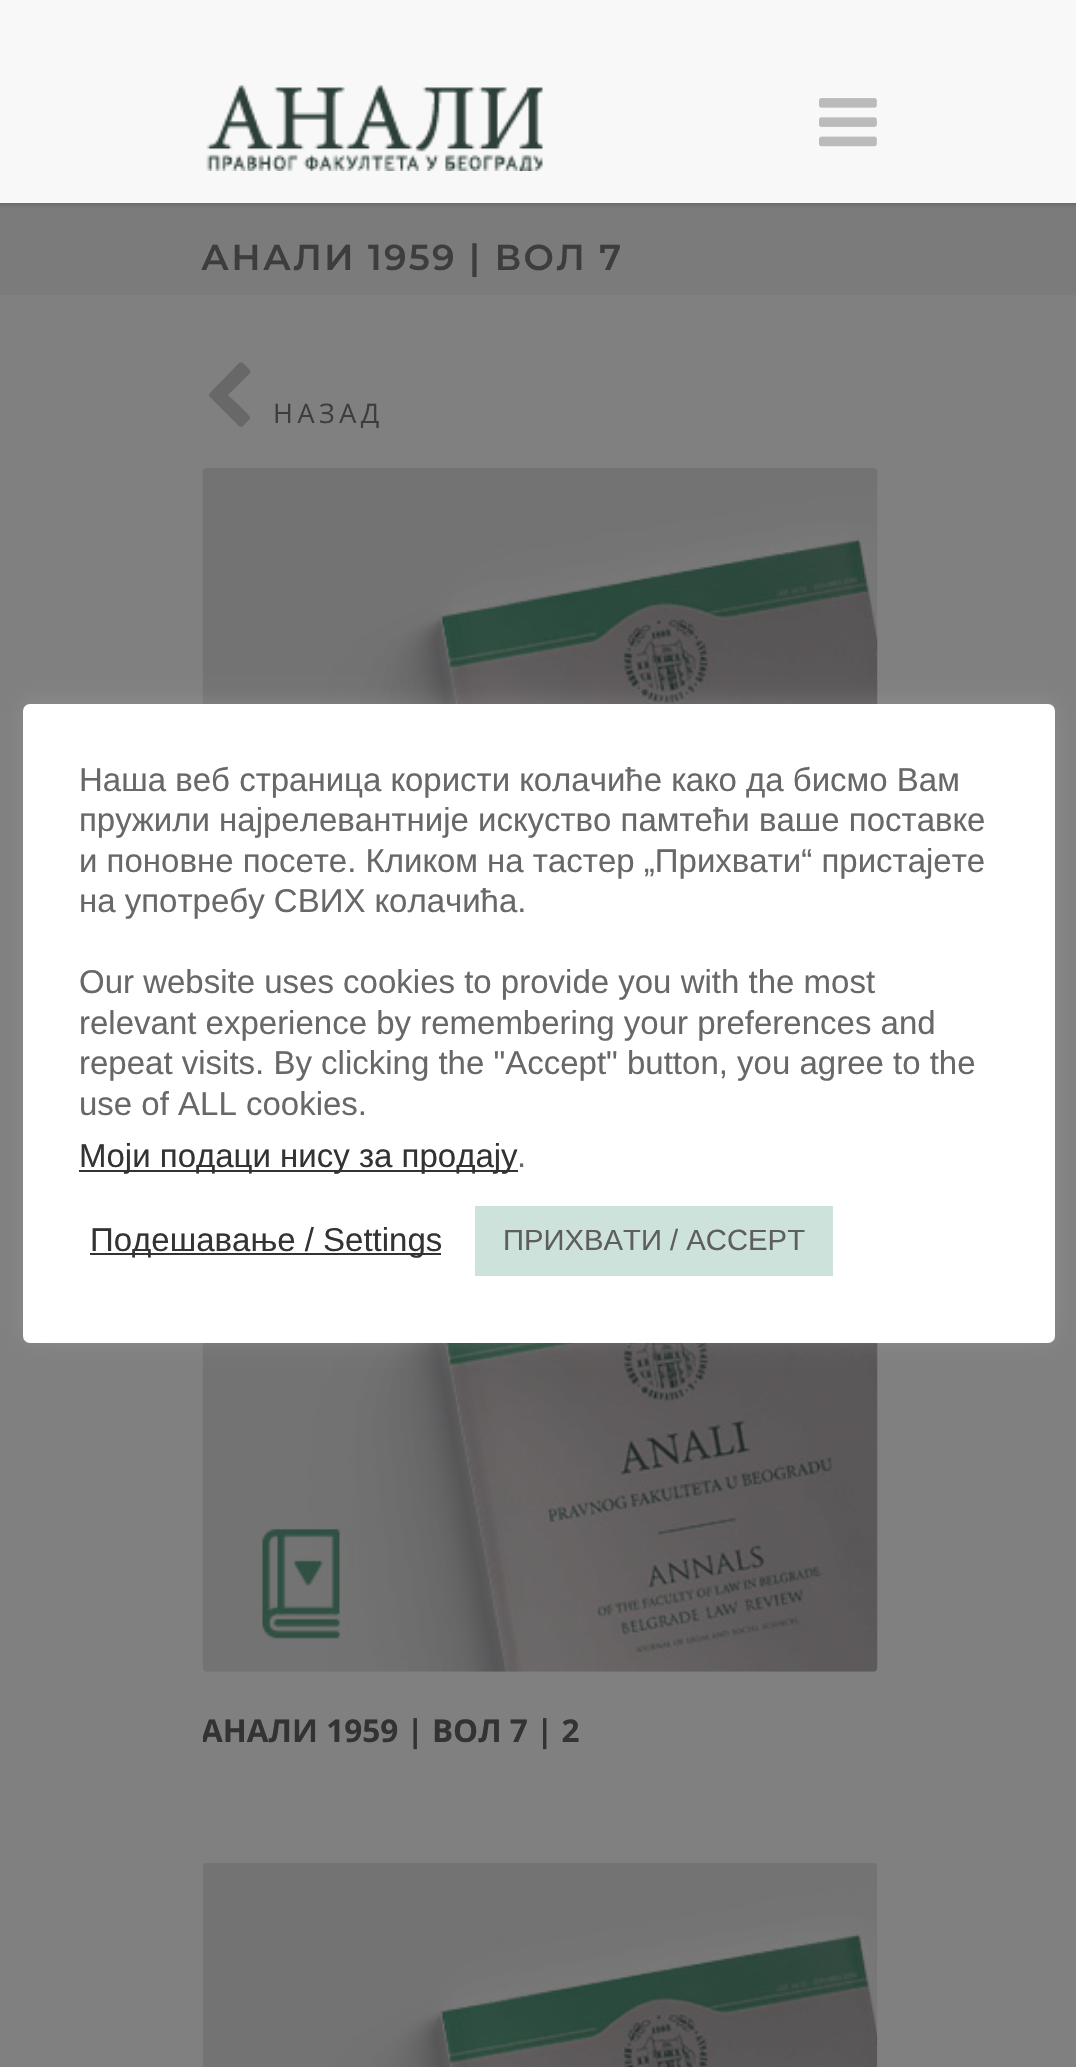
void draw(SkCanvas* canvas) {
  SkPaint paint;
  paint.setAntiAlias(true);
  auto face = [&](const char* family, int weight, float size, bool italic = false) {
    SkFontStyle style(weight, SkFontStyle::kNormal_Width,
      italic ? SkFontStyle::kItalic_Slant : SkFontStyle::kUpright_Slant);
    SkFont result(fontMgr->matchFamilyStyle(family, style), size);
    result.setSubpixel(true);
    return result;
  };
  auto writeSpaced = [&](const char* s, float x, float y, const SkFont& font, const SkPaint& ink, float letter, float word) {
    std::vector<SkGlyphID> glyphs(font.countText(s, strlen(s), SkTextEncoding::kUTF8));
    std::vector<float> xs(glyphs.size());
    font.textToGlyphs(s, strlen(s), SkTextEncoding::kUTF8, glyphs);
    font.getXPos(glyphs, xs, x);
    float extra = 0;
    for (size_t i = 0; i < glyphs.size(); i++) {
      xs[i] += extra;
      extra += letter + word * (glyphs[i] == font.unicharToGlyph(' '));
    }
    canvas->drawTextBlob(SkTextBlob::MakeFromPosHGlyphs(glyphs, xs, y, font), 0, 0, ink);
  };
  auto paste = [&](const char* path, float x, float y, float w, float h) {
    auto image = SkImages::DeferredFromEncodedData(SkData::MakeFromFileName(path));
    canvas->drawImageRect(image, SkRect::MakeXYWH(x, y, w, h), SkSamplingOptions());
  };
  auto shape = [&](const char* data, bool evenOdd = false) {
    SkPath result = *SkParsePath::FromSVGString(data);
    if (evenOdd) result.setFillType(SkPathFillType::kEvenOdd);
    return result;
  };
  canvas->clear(0xff808080);
  paint.setColor(0xff7b7b7b);
  canvas->drawRect(SkRect::MakeXYWH(0, 203, 1076, 92), paint);
  paint.setColor(0x29000000);
  paint.setMaskFilter(SkMaskFilter::MakeBlur(kNormal_SkBlurStyle, 2));
  canvas->drawRect(SkRect::MakeXYWH(-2, -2, 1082, 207), paint);
  paint.setMaskFilter(nullptr);
  paint.setColor(0xfff8f8f8);
  canvas->drawRect(SkRect::MakeXYWH(0, 0, 1076, 203), paint);
  paste("img/1.png", 206, 85, 337, 86);
  paste("img/2.png", 819, 98, 58, 49);
  paint.setColor(0xff686868);
  canvas->drawPath(shape("M250 373L228 395L246 412C252 419 251 418 245 424C240 429 240 427 234 421L209 396V394L239 363C241 361 244 364 245 365L250 370C251 371 250 373 250 373Z"), paint);
  paste("img/3.png", 202, 468, 676, 236);
  paste("img/4.png", 202, 1343, 676, 329);
  paste("img/5.png", 203, 1863, 675, 204);
  paint.setColor(0x4dacabab);
  paint.setMaskFilter(SkMaskFilter::MakeBlur(kNormal_SkBlurStyle, 11));
  canvas->drawRoundRect(SkRect::MakeXYWH(23, 702, 1032, 639), 7, 7, paint);
  paint.setMaskFilter(nullptr);
  paint.setColor(0xffffffff);
  canvas->drawRoundRect(SkRect::MakeXYWH(23, 704, 1032, 639), 7, 7, paint);
  {
    const struct { float x, y, w, h; SkColor color; } items[] = {
      {79, 1170, 439, 2, 0xff333333},
      {90, 1253, 351, 2, 0xff333333},
      {475, 1206, 358, 70, 0xffcce2da},
    };
    for (auto [x, y, w, h, color] : items) {
      paint.setColor(color);
      canvas->drawRect(SkRect::MakeXYWH(x, y, w, h), paint);
    }
  }
  auto f0 = face("Montserrat", 600, 36);
  paint.setColor(0xff3d3d3d);
  writeSpaced("АНАЛИ 1959 | ВОЛ 7", 201, 270, f0, paint, 2.25f, 0);
  auto f1 = face("Open Sans", 400, 27);
  writeSpaced("НАЗАД", 273, 423, f1, paint, 4.5f, 0);
  canvas->save();
  canvas->clipRect(SkRect::MakeXYWH(203, 1708, 675, 43));
  auto f2 = face("Open Sans", 700, 31.5f);
  paint.setColor(0xff333333);
  canvas->drawString("АНAЛИ 1959 | ВОЛ 7 | 2", 201, 1742, f2, paint);
  canvas->restore();
  auto f3 = face("Liberation Sans", 400, 33);
  paint.setColor(0xff686868);
  {
    const struct { const char* s; float x, y; } items[] = {
      {"Наша веб страница користи колачиће како да бисмо Вам", 79, 791},
      {"пружили најрелевантније искуство памтећи ваше поставке", 79, 831},
      {"и поновне посете. Кликом на тастер „Прихвати“ пристајете", 79, 872},
      {"на употребу СВИХ колачића.", 79, 912},
      {"Our website uses cookies to provide you with the most", 79, 993},
      {"relevant experience by remembering your preferences and", 79, 1034},
      {"repeat visits. By clicking the \"Accept\" button, you agree to the", 79, 1074},
      {"use of ALL cookies.", 79, 1115},
    };
    for (auto [s, x, y] : items) {
      canvas->drawString(s, x, y, f3, paint);
    }
  }
  paint.setColor(0xff333333);
  canvas->drawString("Моји подаци нису за продају", 79, 1167, f3, paint);
  paint.setColor(0xff686868);
  canvas->drawString(".", 517, 1167, f3, paint);
  paint.setColor(0xff333333);
  canvas->drawString("Подешавање / Settings", 90, 1251, f3, paint);
  auto f4 = face("Liberation Sans", 400, 29.25f);
  paint.setColor(0xff5e5e5e);
  canvas->drawString("ПРИХВАТИ / ACCEPT", 503, 1250, f4, paint);
}
